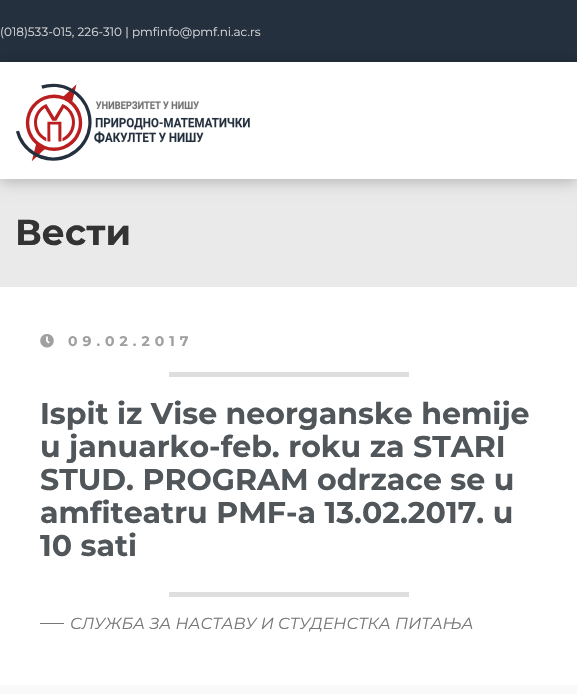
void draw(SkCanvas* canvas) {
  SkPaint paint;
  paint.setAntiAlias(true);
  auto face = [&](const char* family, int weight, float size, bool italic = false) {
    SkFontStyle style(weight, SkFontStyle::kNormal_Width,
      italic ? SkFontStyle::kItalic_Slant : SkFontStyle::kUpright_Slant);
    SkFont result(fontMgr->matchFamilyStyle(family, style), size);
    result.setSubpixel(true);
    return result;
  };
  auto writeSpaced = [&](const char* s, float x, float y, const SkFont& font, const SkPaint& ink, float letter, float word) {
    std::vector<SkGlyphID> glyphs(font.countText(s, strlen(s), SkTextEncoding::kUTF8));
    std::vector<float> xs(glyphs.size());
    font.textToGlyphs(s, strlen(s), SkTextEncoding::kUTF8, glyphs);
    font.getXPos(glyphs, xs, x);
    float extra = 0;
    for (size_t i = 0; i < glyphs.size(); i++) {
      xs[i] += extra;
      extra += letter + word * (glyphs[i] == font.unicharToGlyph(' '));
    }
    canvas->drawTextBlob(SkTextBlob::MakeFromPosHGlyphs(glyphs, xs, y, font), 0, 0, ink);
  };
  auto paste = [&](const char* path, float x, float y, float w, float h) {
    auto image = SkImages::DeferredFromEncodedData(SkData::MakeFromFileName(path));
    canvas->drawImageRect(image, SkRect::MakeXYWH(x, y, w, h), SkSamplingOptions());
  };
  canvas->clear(0xfff9f9f9);
  paint.setColor(0xff24303e);
  canvas->drawRect(SkRect::MakeXYWH(0, 0, 577, 62), paint);
  paint.setColor(0xffeaeaea);
  canvas->drawRect(SkRect::MakeXYWH(0, 179, 577, 108), paint);
  paint.setColor(0x40000000);
  paint.setMaskFilter(SkMaskFilter::MakeBlur(kNormal_SkBlurStyle, 7.5f));
  canvas->drawRect(SkRect::MakeXYWH(0, 64, 577, 117), paint);
  paint.setMaskFilter(nullptr);
  paint.setColor(0xffffffff);
  canvas->drawRect(SkRect::MakeXYWH(0, 62, 577, 117), paint);
  paste("img/1.png", 16, 83, 234, 79);
  canvas->drawRect(SkRect::MakeXYWH(0, 287, 577, 398), paint);
  paste("img/2.png", 40, 334, 14, 14);
  {
    const struct { float x, y, w, h; SkColor color; } items[] = {
      {169, 372, 240, 5, 0xffdedede},
      {169, 592, 240, 5, 0xffdedede},
      {40, 623, 24, 1, 0xff777777},
    };
    for (auto [x, y, w, h, color] : items) {
      paint.setColor(color);
      canvas->drawRect(SkRect::MakeXYWH(x, y, w, h), paint);
    }
  }
  auto f0 = face("Montserrat", 400, 12);
  paint.setColor(0xffd8d8d8);
  canvas->drawString("(018)533-015, 226-310 | pmfinfo@pmf.ni.ac.rs", 0, 36, f0, paint);
  auto f1 = face("Montserrat", 700, 36);
  paint.setColor(0xff333333);
  canvas->drawString("Вести", 15, 245, f1, paint);
  auto f2 = face("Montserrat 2", 700, 14);
  paint.setColor(0xffa0a0a0);
  writeSpaced("09.02.2017", 68, 346, f2, paint, 5, 0);
  auto f3 = face("Montserrat", 700, 30);
  paint.setColor(0xff50565a);
  {
    const struct { const char* s; float x, y; } items[] = {
      {"Ispit iz Vise neorganske hemije", 40, 424},
      {"u januarko-feb. roku za STARI", 40, 457},
      {"STUD. PROGRAM odrzace se u", 40, 490},
      {"amfiteatru PMF-a 13.02.2017. u", 40, 523},
      {"10 sati", 40, 556},
    };
    for (auto [s, x, y] : items) {
      canvas->drawString(s, x, y, f3, paint);
    }
  }
  auto f4 = face("Montserrat", 400, 16, true);
  paint.setColor(0xff777777);
  canvas->drawString("СЛУЖБА ЗА НАСТАВУ И СТУДЕНСТКА ПИТАЊА", 70, 629, f4, paint);
}
